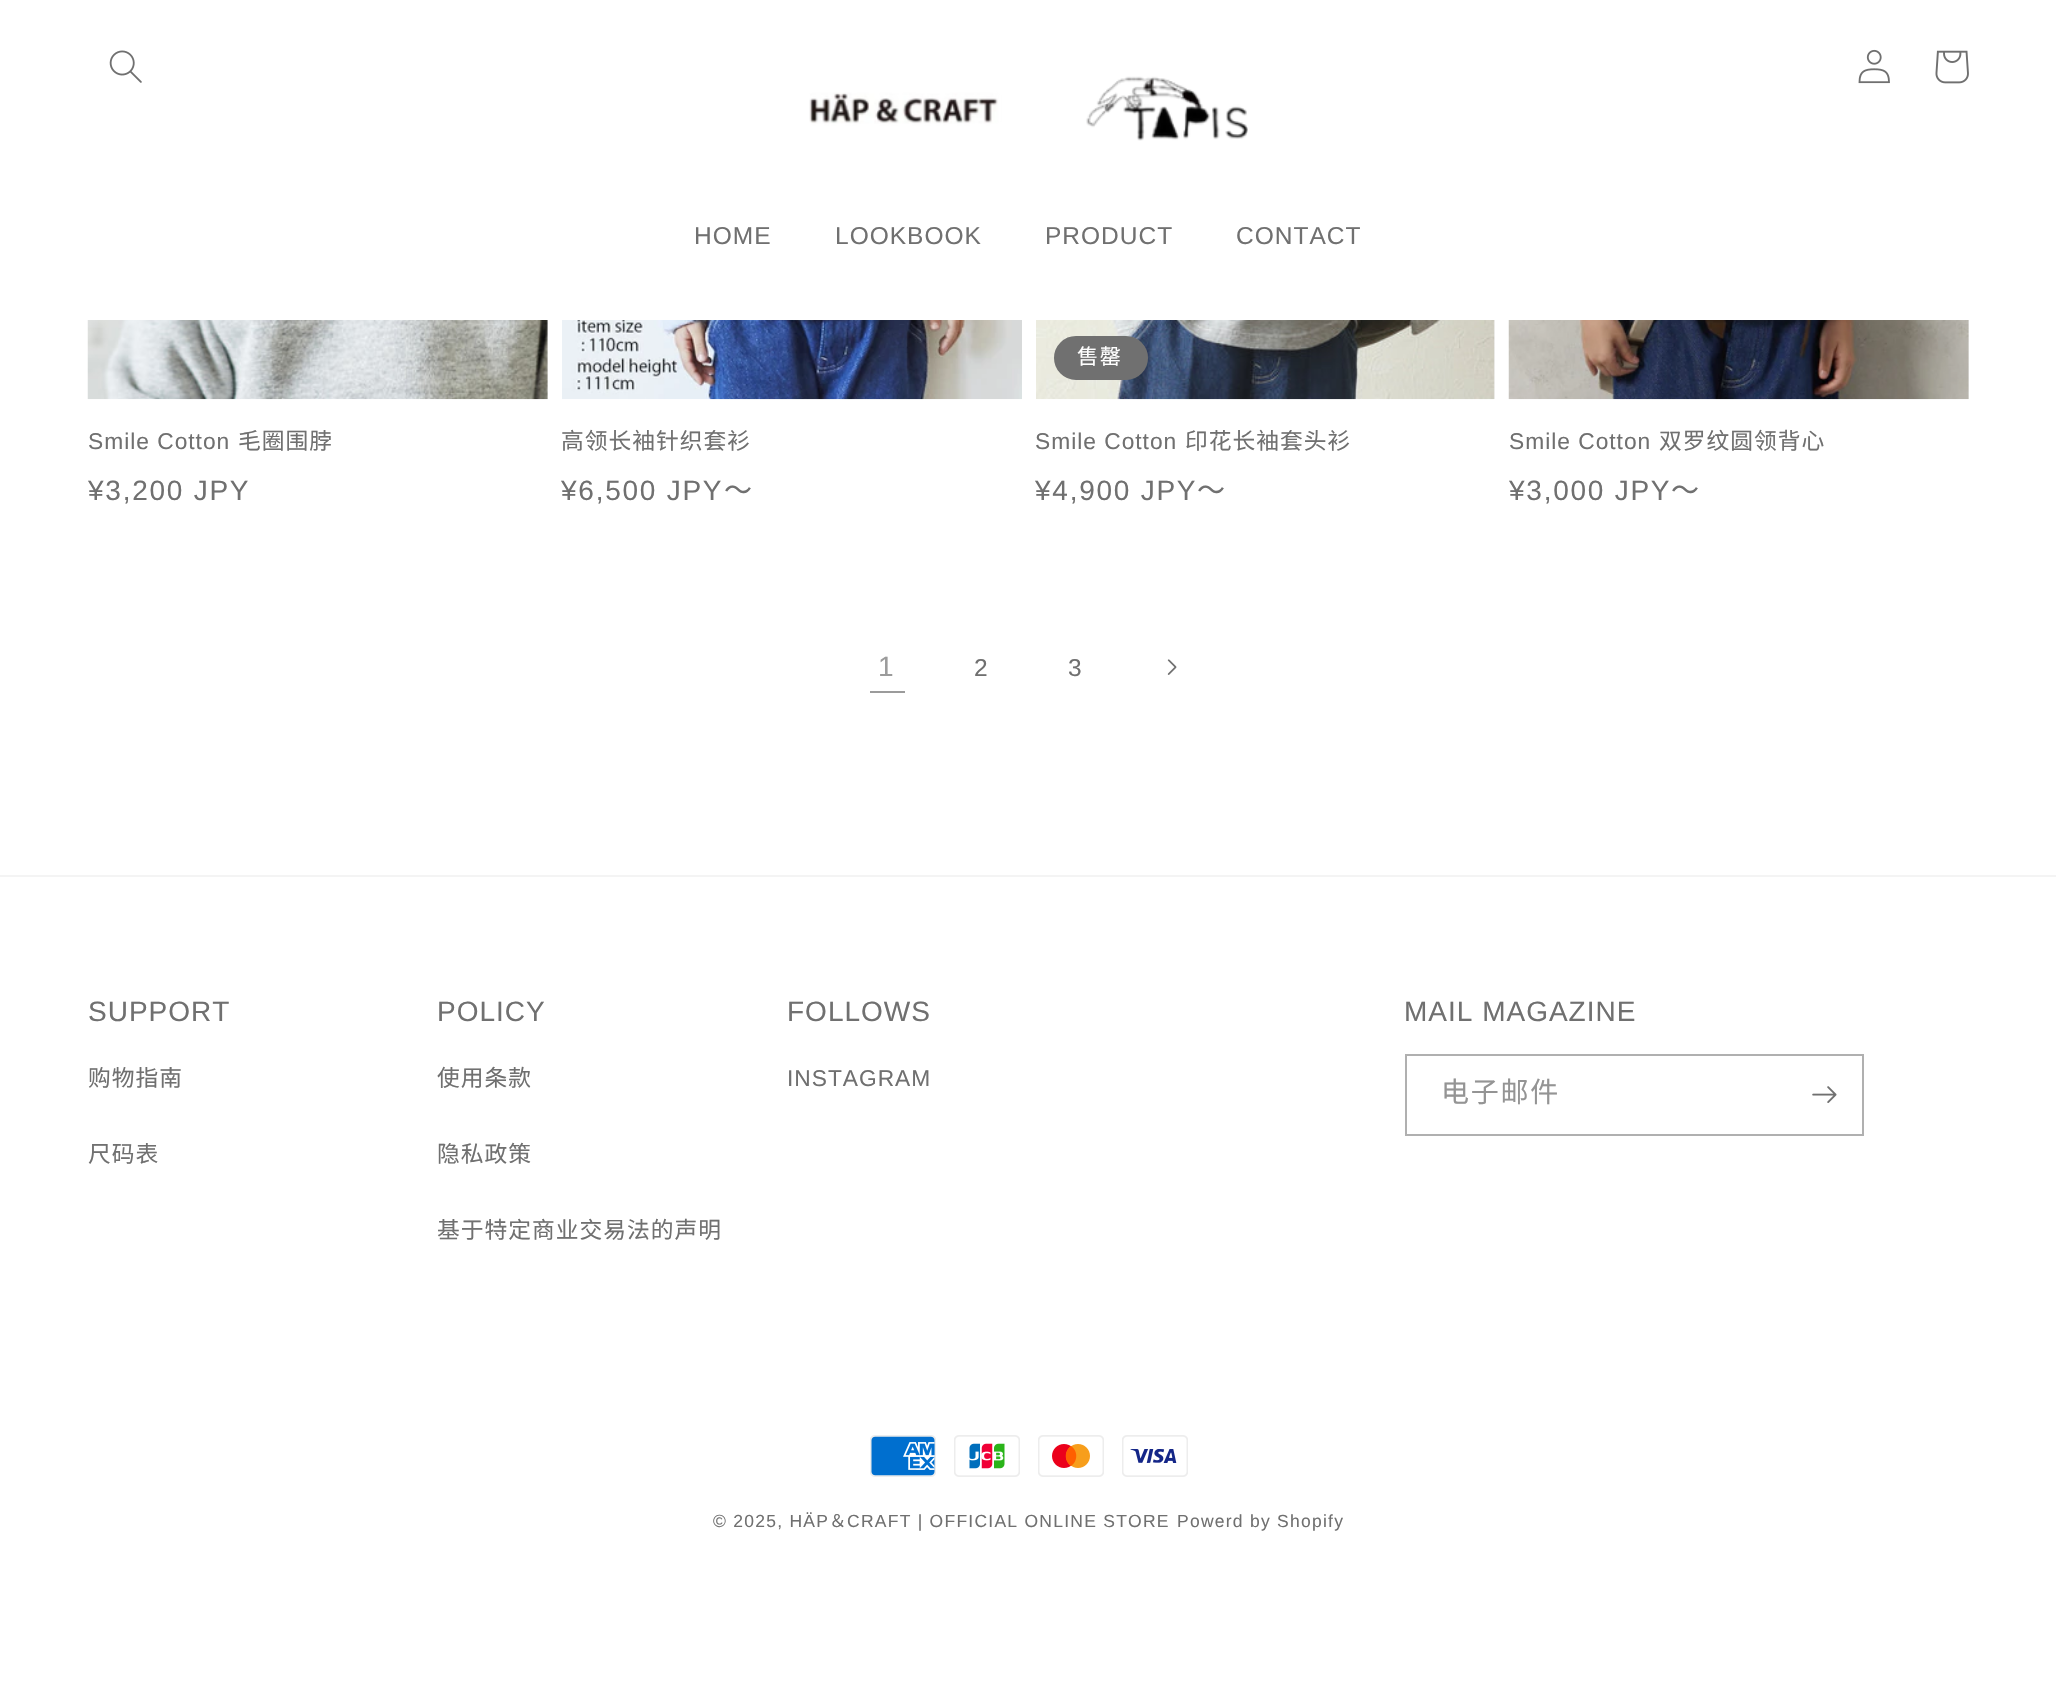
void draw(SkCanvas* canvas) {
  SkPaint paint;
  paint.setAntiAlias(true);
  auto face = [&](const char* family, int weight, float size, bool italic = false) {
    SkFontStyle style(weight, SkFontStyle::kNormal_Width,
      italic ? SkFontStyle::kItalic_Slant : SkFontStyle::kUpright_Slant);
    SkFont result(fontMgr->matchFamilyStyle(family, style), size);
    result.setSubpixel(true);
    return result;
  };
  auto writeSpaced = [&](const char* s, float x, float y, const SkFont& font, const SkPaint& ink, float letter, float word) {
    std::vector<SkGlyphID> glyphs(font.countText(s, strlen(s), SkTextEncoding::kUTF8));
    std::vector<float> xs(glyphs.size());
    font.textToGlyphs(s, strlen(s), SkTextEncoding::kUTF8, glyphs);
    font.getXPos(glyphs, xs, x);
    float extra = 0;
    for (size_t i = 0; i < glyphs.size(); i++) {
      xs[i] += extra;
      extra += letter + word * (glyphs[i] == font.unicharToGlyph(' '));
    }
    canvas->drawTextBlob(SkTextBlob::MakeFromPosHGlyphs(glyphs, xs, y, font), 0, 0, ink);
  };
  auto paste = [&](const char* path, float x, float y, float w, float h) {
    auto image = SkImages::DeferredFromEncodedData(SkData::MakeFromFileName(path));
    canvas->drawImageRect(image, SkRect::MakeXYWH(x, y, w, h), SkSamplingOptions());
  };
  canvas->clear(0xffffffff);
  paste("img/1.png", 109, 50, 33, 33);
  paste("img/2.png", 1858, 49, 32, 35);
  paste("img/3.png", 1935, 50, 34, 34);
  paste("img/4.png", 809, 76, 439, 65);
  paint.setColor(0xfff3f3f3);
  canvas->drawRect(SkRect::MakeXYWH(547, 320, 1, 79), paint);
  paste("img/5.png", 87, 320, 461, 80);
  paste("img/6.png", 562, 320, 460, 80);
  canvas->drawRect(SkRect::MakeXYWH(1494, 320, 1, 79), paint);
  paste("img/7.png", 1036, 320, 459, 80);
  paint.setColor(0xff707070);
  canvas->drawRoundRect(SkRect::MakeXYWH(1055, 337, 92, 42), 21, 21, paint);
  paint.setStroke(true);
  paint.setStrokeWidth(2);
  canvas->drawRoundRect(SkRect::MakeXYWH(1055, 337, 92, 42), 21, 21, paint);
  paint.setStroke(false);
  paint.setColor(0xfff3f3f3);
  canvas->drawRect(SkRect::MakeXYWH(1968, 320, 1, 79), paint);
  paste("img/8.png", 1508, 320, 461, 80);
  paint.setColor(0xff9b9b9b);
  canvas->drawRect(SkRect::MakeXYWH(870, 691, 35, 2), paint);
  paste("img/9.png", 1167, 659, 10, 16);
  paint.setColor(0xfff4f4f4);
  canvas->drawRect(SkRect::MakeXYWH(0, 875, 2056, 2), paint);
  paint.setStroke(true);
  paint.setColor(0xffb0b0b0);
  canvas->drawRect(SkRect::MakeXYWH(1406, 1055, 457, 80), paint);
  paste("img/10.png", 1812, 1086, 25, 17);
  paste("img/11.png", 870, 1435, 66, 42);
  paste("img/12.png", 954, 1435, 66, 42);
  paste("img/13.png", 1038, 1435, 66, 42);
  paste("img/14.png", 1122, 1435, 66, 42);
  auto f0 = face("Liberation Sans", 400, 24.5f);
  paint.setStroke(false);
  paint.setColor(0xff707070);
  {
    const struct { const char* s; float x, y; } items[] = {
      {"HOME", 694, 244},
      {"LOOKBOOK", 835, 244},
      {"PRODUCT", 1045, 244},
      {"CONTACT", 1236, 244},
    };
    for (auto [s, x, y] : items) {
      writeSpaced(s, x, y, f0, paint, 1, 0);
    }
  }
  auto f1 = face("Liberation Sans", 400, 22.75f);
  writeSpaced("Smile Cotton", 88, 449, f1, paint, 1, 0);
  auto f2 = face("Noto Sans CJK SC", 400, 22.75f);
  writeSpaced("毛圈围脖", 238, 449, f2, paint, 1, 0);
  auto f3 = face("Liberation Sans", 400, 28);
  writeSpaced("¥3,200 JPY", 88, 500, f3, paint, 1.75f, 0);
  writeSpaced("高领长袖针织套衫", 561, 449, f2, paint, 1, 0);
  writeSpaced("¥6,500 JPY", 561, 500, f3, paint, 1.75f, 0);
  auto f4 = face("Noto Sans JP", 100, 28);
  writeSpaced("～", 724, 500, f4, paint, 1.75f, 0);
  auto f5 = face("Noto Sans JP", 100, 21);
  paint.setColor(0xffffffff);
  writeSpaced("售罄", 1077, 364, f5, paint, 1.75f, 0);
  paint.setColor(0xff707070);
  writeSpaced("Smile Cotton", 1035, 449, f1, paint, 1, 0);
  writeSpaced("印花长袖套头衫", 1185, 449, f2, paint, 1, 0);
  writeSpaced("¥4,900 JPY", 1035, 500, f3, paint, 1.75f, 0);
  writeSpaced("～", 1197, 500, f4, paint, 1.75f, 0);
  writeSpaced("Smile Cotton", 1509, 449, f1, paint, 1, 0);
  writeSpaced("双罗纹圆领背心", 1659, 449, f2, paint, 1, 0);
  writeSpaced("¥3,000 JPY", 1509, 500, f3, paint, 1.75f, 0);
  writeSpaced("～", 1671, 500, f4, paint, 1.75f, 0);
  paint.setColor(0xff9b9b9b);
  writeSpaced("1", 878, 676, f3, paint, 1, 0);
  paint.setColor(0xff707070);
  writeSpaced("2", 974, 676, f0, paint, 1, 0);
  writeSpaced("3", 1068, 676, f0, paint, 1, 0);
  writeSpaced("SUPPORT", 88, 1021, f3, paint, 1, 0);
  writeSpaced("购物指南", 88, 1086, f2, paint, 1, 0);
  writeSpaced("尺码表", 88, 1162, f2, paint, 1, 0);
  writeSpaced("POLICY", 437, 1021, f3, paint, 1, 0);
  auto f6 = face("Noto Sans JP", 100, 22.75f);
  writeSpaced("使用条款", 437, 1086, f6, paint, 1, 0);
  writeSpaced("隐私政策", 437, 1162, f2, paint, 1, 0);
  writeSpaced("基于特定商业交易法的声明", 437, 1238, f2, paint, 1, 0);
  writeSpaced("FOLLOWS", 787, 1021, f3, paint, 1, 0);
  writeSpaced("INSTAGRAM", 787, 1086, f1, paint, 1, 0);
  writeSpaced("MAIL MAGAZINE", 1404, 1021, f3, paint, 1, 0);
  auto f7 = face("Noto Sans CJK SC", 400, 28);
  paint.setColor(0xff949494);
  writeSpaced("电子邮件", 1441, 1102, f7, paint, 1.75f, 0);
  auto f8 = face("Liberation Sans", 400, 17.5f);
  paint.setColor(0xff707070);
  writeSpaced("© 2025, HÄP", 713, 1527, f8, paint, 1.25f, 0);
  auto f9 = face("Noto Sans JP", 100, 17.5f);
  writeSpaced("＆", 829, 1527, f9, paint, 1.25f, 0);
  writeSpaced("CRAFT | OFFICIAL ONLINE STORE", 847, 1527, f8, paint, 1.25f, 0);
  writeSpaced("Powerd by Shopify", 1177, 1527, f8, paint, 1.25f, 0);
}
